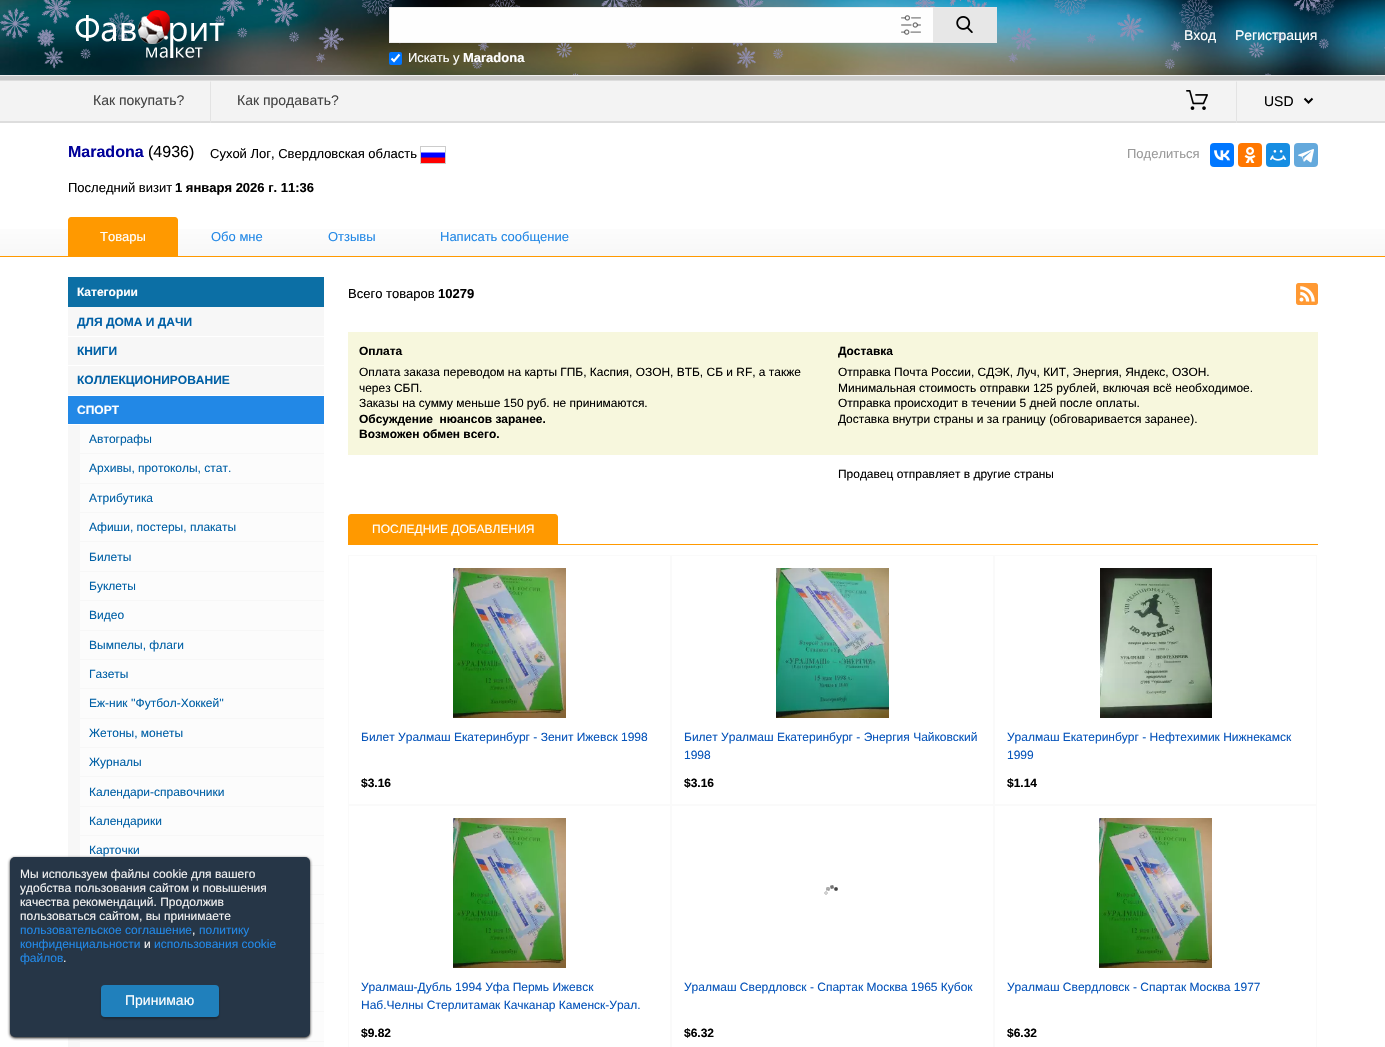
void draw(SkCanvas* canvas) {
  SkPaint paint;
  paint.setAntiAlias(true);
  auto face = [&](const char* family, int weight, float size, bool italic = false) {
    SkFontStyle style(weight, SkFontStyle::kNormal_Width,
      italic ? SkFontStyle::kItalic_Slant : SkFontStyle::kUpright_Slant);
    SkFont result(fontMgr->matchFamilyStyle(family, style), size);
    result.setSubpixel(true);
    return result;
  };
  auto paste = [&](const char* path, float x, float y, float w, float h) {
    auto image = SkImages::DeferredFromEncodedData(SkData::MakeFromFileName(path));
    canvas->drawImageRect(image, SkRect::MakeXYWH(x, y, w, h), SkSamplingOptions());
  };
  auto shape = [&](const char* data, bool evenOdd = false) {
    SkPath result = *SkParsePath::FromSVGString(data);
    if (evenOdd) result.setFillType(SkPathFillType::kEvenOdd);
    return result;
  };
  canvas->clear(0xffffffff);
  paste("img/1.png", 0, 0, 1385, 75);
  paste("img/2.png", 75, 10, 149, 48);
  paint.setColor(0xfffefefe);
  canvas->drawRect(SkRect::MakeXYWH(390, 8, 543, 34), paint);
  paint.setStroke(true);
  paint.setStrokeWidth(1);
  paint.setColor(0xffeeeeee);
  canvas->drawRect(SkRect::MakeXYWH(389.5f, 7.5f, 607, 35), paint);
  paste("img/3.png", 901, 15, 20, 20);
  paint.setStroke(false);
  paint.setColor(0xffe7e7e7);
  canvas->drawRect(SkRect::MakeXYWH(933, 7, 64, 36), paint);
  paste("img/4.png", 956, 16, 17, 17);
  paint.setColor(0xff0075ff);
  canvas->drawRoundRect(SkRect::MakeXYWH(389, 52, 13, 13), 2, 2, paint);
  paint.setStroke(true);
  paint.setStrokeWidth(2.1f);
  paint.setColor(0xffffffff);
  canvas->drawPath(shape("M391.5 58.5L394 61L399.5 54.5"), paint);
  paint.setStroke(false);
  {
    const struct { float x, y, w, h; SkColor color; } items[] = {
      {0, 75, 1385, 1, 0xffeeeeee},
      {0, 76, 1385, 4, 0xffcccccc},
      {0, 81, 1385, 40, 0xfff3f3f3},
      {0, 80, 1385, 1, 0xffdddddd},
      {0, 121, 1385, 2, 0xffdddddd},
    };
    for (auto [x, y, w, h, color] : items) {
      paint.setColor(color);
      canvas->drawRect(SkRect::MakeXYWH(x, y, w, h), paint);
    }
  }
  paint.setColor(0xffe3e3e3);
  canvas->drawPath(shape("M211 81V123H210V82Z"), paint);
  canvas->drawPath(shape("M1237 81V123H1236V82Z"), paint);
  paste("img/5.png", 1186, 90, 22, 20);
  paint.setStroke(true);
  paint.setStrokeWidth(2);
  paint.setColor(0xff000000);
  canvas->drawPath(shape("M1304.5 98.5L1308.5 102.5L1312.5 98.5"), paint);
  paint.setStroke(false);
  {
    const SkColor colors[] = {0xffffffff, 0xfff7f7f7};
    const float stops[] = {0.7f, 1};
    const SkPoint ends[] = {{693, 123}, {693, 256}};
    paint.setShader(SkGradientShader::MakeLinear(ends, colors, stops, 2, SkTileMode::kClamp));
    paint.setAlpha(255);
  }
  canvas->drawRect(SkRect::MakeXYWH(0, 229, 1385, 27), paint);
  paint.setShader(nullptr);
  paint.setColor(0xffff9900);
  canvas->drawRect(SkRect::MakeXYWH(0, 256, 1385, 1), paint);
  paint.setStroke(true);
  paint.setStrokeWidth(1);
  paint.setColor(0xffcccccc);
  canvas->drawRect(SkRect::MakeXYWH(420.5f, 146.5f, 25, 17), paint);
  paste("img/6.png", 421, 152, 24, 11);
  paint.setStroke(false);
  paint.setColor(0xff0077ff);
  canvas->drawRoundRect(SkRect::MakeXYWH(1210, 143, 24, 24), 4, 4, paint);
  paste("img/7.png", 1214, 150, 16, 11);
  paint.setColor(0xffff7700);
  canvas->drawRoundRect(SkRect::MakeXYWH(1238, 143, 24, 24), 4, 4, paint);
  paste("img/8.png", 1244, 147, 12, 16);
  paint.setColor(0xff168de2);
  canvas->drawRoundRect(SkRect::MakeXYWH(1266, 143, 24, 24), 4, 4, paint);
  paste("img/9.png", 1270, 150, 16, 11);
  paint.setColor(0xff64a9dc);
  canvas->drawRoundRect(SkRect::MakeXYWH(1294, 143, 24, 24), 4, 4, paint);
  paste("img/10.png", 1298, 149, 16, 14);
  paint.setColor(0xffff9900);
  canvas->drawPath(shape("M71 217H175C176.5 217 178 218.5 178 220V256H68V220C68 218.5 69.5 217 71 217Z"), paint);
  {
    const struct { float x, y, w, h; SkColor color; } items[] = {
      {68, 277, 256, 30, 0xff0c6fa5},
      {68, 307, 256, 29, 0xfff7f7f7},
      {68, 337, 256, 28, 0xfff7f7f7},
      {68, 366, 256, 29, 0xfff7f7f7},
      {68, 396, 256, 28, 0xff2288e6},
      {68, 425, 256, 622, 0xfff7f7f7},
      {80, 425, 244, 28, 0xfffcfcfc},
      {80, 454, 244, 29, 0xfffcfcfc},
      {80, 484, 244, 28, 0xfffcfcfc},
      {80, 513, 244, 28, 0xfffcfcfc},
      {80, 542, 244, 29, 0xfffcfcfc},
      {80, 572, 244, 28, 0xfffcfcfc},
      {80, 601, 244, 29, 0xfffcfcfc},
      {80, 631, 244, 28, 0xfffcfcfc},
      {80, 660, 244, 28, 0xfffcfcfc},
      {80, 689, 244, 29, 0xfffcfcfc},
      {80, 719, 244, 28, 0xfffcfcfc},
      {80, 748, 244, 28, 0xfffcfcfc},
      {80, 777, 244, 29, 0xfffcfcfc},
      {80, 807, 244, 28, 0xfffcfcfc},
      {80, 836, 244, 29, 0xfffcfcfc},
      {310, 866, 14, 28, 0xfffcfcfc},
      {310, 895, 14, 28, 0xfffcfcfc},
      {310, 924, 14, 29, 0xfffcfcfc},
      {310, 954, 14, 28, 0xfffcfcfc},
      {310, 983, 14, 28, 0xfffcfcfc},
      {80, 1012, 244, 29, 0xfffcfcfc},
      {80, 1042, 244, 5, 0xfffcfcfc},
    };
    for (auto [x, y, w, h, color] : items) {
      paint.setColor(color);
      canvas->drawRect(SkRect::MakeXYWH(x, y, w, h), paint);
    }
  }
  paste("img/11.png", 1296, 283, 22, 22);
  paint.setColor(0xfff7f7dd);
  canvas->drawRect(SkRect::MakeXYWH(348, 332, 970, 123), paint);
  paint.setColor(0xffff9900);
  canvas->drawRect(SkRect::MakeXYWH(348, 544, 970, 1), paint);
  canvas->drawPath(shape("M351 514H555C556.5 514 558 515.5 558 517V544H348V517C348 515.5 349.5 514 351 514Z"), paint);
  paint.setStroke(true);
  paint.setColor(0xfffafafa);
  canvas->drawRect(SkRect::MakeXYWH(348.5f, 555.5f, 322, 249), paint);
  paste("img/12.png", 453, 568, 113, 150);
  canvas->drawRect(SkRect::MakeXYWH(671.5f, 555.5f, 322, 249), paint);
  paste("img/13.png", 776, 568, 113, 150);
  canvas->drawRect(SkRect::MakeXYWH(994.5f, 555.5f, 322, 249), paint);
  paste("img/14.png", 1100, 568, 112, 150);
  canvas->drawRect(SkRect::MakeXYWH(348.5f, 805.5f, 322, 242), paint);
  paste("img/12.png", 453, 818, 113, 150);
  paste("img/15.png", 824, 885, 14, 10);
  canvas->drawRect(SkRect::MakeXYWH(671.5f, 805.5f, 322, 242), paint);
  canvas->drawRect(SkRect::MakeXYWH(994.5f, 805.5f, 322, 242), paint);
  paste("img/16.png", 1099, 818, 113, 150);
  paint.setStroke(false);
  paint.setColor(0xff111111);
  paint.setMaskFilter(SkMaskFilter::MakeBlur(kNormal_SkBlurStyle, 1.5f));
  canvas->drawRoundRect(SkRect::MakeXYWH(10, 858, 300, 180), 5, 5, paint);
  paint.setMaskFilter(nullptr);
  paint.setColor(0xff263647);
  canvas->drawRoundRect(SkRect::MakeXYWH(10, 857, 300, 180), 5, 5, paint);
  paint.setColor(0x40000000);
  paint.setMaskFilter(SkMaskFilter::MakeBlur(kNormal_SkBlurStyle, 1));
  canvas->drawRoundRect(SkRect::MakeXYWH(101, 987, 118, 32), 4, 4, paint);
  paint.setMaskFilter(nullptr);
  paint.setColor(0xff2080bc);
  canvas->drawRoundRect(SkRect::MakeXYWH(101, 985, 118, 32), 4, 4, paint);
  auto f0 = face("Liberation Sans", 400, 14);
  paint.setColor(0xffffffff);
  canvas->drawString("Вход", 1184, 40, f0, paint);
  canvas->drawString("Регистрация", 1235, 40, f0, paint);
  auto f1 = face("Liberation Sans", 400, 13);
  canvas->drawString("Искать у", 408, 62, f1, paint);
  auto f2 = face("Liberation Sans", 700, 13);
  canvas->drawString("Maradona", 463, 62, f2, paint);
  paint.setColor(0xff444444);
  canvas->drawString("Как покупать?", 93, 105, f0, paint);
  canvas->drawString("Как продавать?", 237, 105, f0, paint);
  paint.setColor(0xff000000);
  canvas->drawString("USD", 1264, 106, f0, paint);
  auto f3 = face("Liberation Sans", 700, 16);
  paint.setColor(0xff000099);
  canvas->drawString("Maradona", 68, 157, f3, paint);
  auto f4 = face("Liberation Sans", 400, 16);
  paint.setColor(0xff000000);
  canvas->drawString("(4936)", 148, 157, f4, paint);
  canvas->drawString("Сухой Лог, Свердловская область", 210, 158, f1, paint);
  paint.setColor(0xff999999);
  canvas->drawString("Поделиться", 1127, 158, f1, paint);
  paint.setColor(0xff000000);
  canvas->drawString("Последний визит", 68, 192, f1, paint);
  canvas->drawString("1 января 2026 г. 11:36", 175, 192, f2, paint);
  paint.setColor(0xffffffff);
  canvas->drawString("Товары", 100, 241, f1, paint);
  paint.setColor(0xff2288e6);
  {
    const struct { const char* s; float x, y; } items[] = {
      {"Обо мне", 211, 241},
      {"Отзывы", 328, 241},
      {"Написать сообщение", 440, 241},
    };
    for (auto [s, x, y] : items) {
      canvas->drawString(s, x, y, f1, paint);
    }
  }
  auto f5 = face("Liberation Sans", 700, 12);
  paint.setColor(0xffffffff);
  canvas->drawString("Категории", 77, 296, f5, paint);
  paint.setColor(0xff0060a6);
  {
    const struct { const char* s; float x, y; } items[] = {
      {"ДЛЯ ДОМА И ДАЧИ", 77, 326},
      {"КНИГИ", 77, 355},
      {"КОЛЛЕКЦИОНИРОВАНИЕ", 77, 384},
    };
    for (auto [s, x, y] : items) {
      canvas->drawString(s, x, y, f5, paint);
    }
  }
  paint.setColor(0xffffffff);
  canvas->drawString("СПОРТ", 77, 414, f5, paint);
  auto f6 = face("Liberation Sans", 400, 12);
  paint.setColor(0xff0060a6);
  {
    const struct { const char* s; float x, y; } items[] = {
      {"Автографы", 89, 443},
      {"Архивы, протоколы, стат.", 89, 472},
      {"Атрибутика", 89, 502},
      {"Афиши, постеры, плакаты", 89, 531},
      {"Билеты", 89, 561},
      {"Буклеты", 89, 590},
      {"Видео", 89, 619},
      {"Вымпелы, флаги", 89, 649},
      {"Газеты", 89, 678},
      {"Еж-ник ''Футбол-Хоккей''", 89, 707},
      {"Жетоны, монеты", 89, 737},
      {"Журналы", 89, 766},
      {"Календари-справочники", 89, 796},
      {"Календарики", 89, 825},
      {"Карточки", 89, 854},
    };
    for (auto [s, x, y] : items) {
      canvas->drawString(s, x, y, f6, paint);
    }
  }
  paint.setColor(0xff000000);
  canvas->drawString("Всего товаров", 348, 298, f1, paint);
  canvas->drawString("10279", 438, 298, f2, paint);
  auto f7 = face("Liberation Sans", 700, 11.95f);
  canvas->drawString("Оплата", 359, 355, f7, paint);
  auto f8 = face("Liberation Sans", 400, 11.95f);
  {
    const struct { const char* s; float x, y; } items[] = {
      {"Оплата заказа переводом на карты ГПБ, Каспия, ОЗОН, ВТБ, СБ и RF, а также", 359, 376},
      {"через СБП.", 359, 392},
      {"Заказы на сумму меньше 150 руб. не принимаются.", 359, 407},
    };
    for (auto [s, x, y] : items) {
      canvas->drawString(s, x, y, f8, paint);
    }
  }
  {
    const struct { const char* s; float x, y; } items[] = {
      {"Обсуждение  нюансов заранее.", 359, 423},
      {"Возможен обмен всего.", 359, 438},
      {"Доставка", 838, 355},
    };
    for (auto [s, x, y] : items) {
      canvas->drawString(s, x, y, f7, paint);
    }
  }
  {
    const struct { const char* s; float x, y; } items[] = {
      {"Отправка Почта России, СДЭК, Луч, КИТ, Энергия, Яндекс, ОЗОН.", 838, 376},
      {"Минимальная стоимость отправки 125 рублей, включая всё необходимое.", 838, 392},
      {"Отправка происходит в течении 5 дней после оплаты.", 838, 407},
      {"Доставка внутри страны и за границу (обговаривается заранее).", 838, 423},
      {"Продавец отправляет в другие страны", 838, 478},
    };
    for (auto [s, x, y] : items) {
      canvas->drawString(s, x, y, f8, paint);
    }
  }
  paint.setColor(0xffffffff);
  canvas->drawString("ПОСЛЕДНИЕ ДОБАВЛЕНИЯ", 372, 533, f6, paint);
  paint.setColor(0xff0654ba);
  canvas->drawString("Билет Уралмаш Екатеринбург - Зенит Ижевск 1998", 361, 741, f6, paint);
  paint.setColor(0xff000000);
  canvas->drawString("$3.16", 361, 787, f5, paint);
  paint.setColor(0xff0654ba);
  canvas->drawString("Билет Уралмаш Екатеринбург - Энергия Чайковский", 684, 741, f6, paint);
  canvas->drawString("1998", 684, 759, f6, paint);
  paint.setColor(0xff000000);
  canvas->drawString("$3.16", 684, 787, f5, paint);
  paint.setColor(0xff0654ba);
  canvas->drawString("Уралмаш Екатеринбург - Нефтехимик Нижнекамск", 1007, 741, f6, paint);
  canvas->drawString("1999", 1007, 759, f6, paint);
  paint.setColor(0xff000000);
  canvas->drawString("$1.14", 1007, 787, f5, paint);
  paint.setColor(0xff0654ba);
  canvas->drawString("Уралмаш-Дубль 1994 Уфа Пермь Ижевск", 361, 991, f6, paint);
  canvas->drawString("Наб.Челны Стерлитамак Качканар Каменск-Урал.", 361, 1009, f6, paint);
  paint.setColor(0xff000000);
  canvas->drawString("$9.82", 361, 1037, f5, paint);
  paint.setColor(0xff0654ba);
  canvas->drawString("Уралмаш Свердловск - Спартак Москва 1965 Кубок", 684, 991, f6, paint);
  paint.setColor(0xff000000);
  canvas->drawString("$6.32", 684, 1037, f5, paint);
  paint.setColor(0xff0654ba);
  canvas->drawString("Уралмаш Свердловск - Спартак Москва 1977", 1007, 991, f6, paint);
  paint.setColor(0xff000000);
  canvas->drawString("$6.32", 1007, 1037, f5, paint);
  paint.setColor(0xfff1f1f1);
  {
    const struct { const char* s; float x, y; } items[] = {
      {"Мы используем файлы cookie для вашего", 20, 878},
      {"удобства пользования сайтом и повышения", 20, 892},
      {"качества рекомендаций. Продолжив", 20, 906},
      {"пользоваться сайтом, вы принимаете", 20, 920},
    };
    for (auto [s, x, y] : items) {
      canvas->drawString(s, x, y, f6, paint);
    }
  }
  paint.setColor(0xff2288e6);
  canvas->drawString("пользовательское соглашение", 20, 934, f6, paint);
  paint.setColor(0xfff1f1f1);
  canvas->drawString(",", 192, 934, f6, paint);
  paint.setColor(0xff2288e6);
  canvas->drawString("политику", 199, 934, f6, paint);
  canvas->drawString("конфиденциальности", 20, 948, f6, paint);
  paint.setColor(0xfff1f1f1);
  canvas->drawString("и", 144, 948, f6, paint);
  paint.setColor(0xff2288e6);
  canvas->drawString("использования cookie", 154, 948, f6, paint);
  canvas->drawString("файлов", 20, 962, f6, paint);
  paint.setColor(0xfff1f1f1);
  canvas->drawString(".", 63, 962, f6, paint);
  paint.setColor(0xffffffff);
  canvas->drawString("Принимаю", 125, 1005, f0, paint);
}
